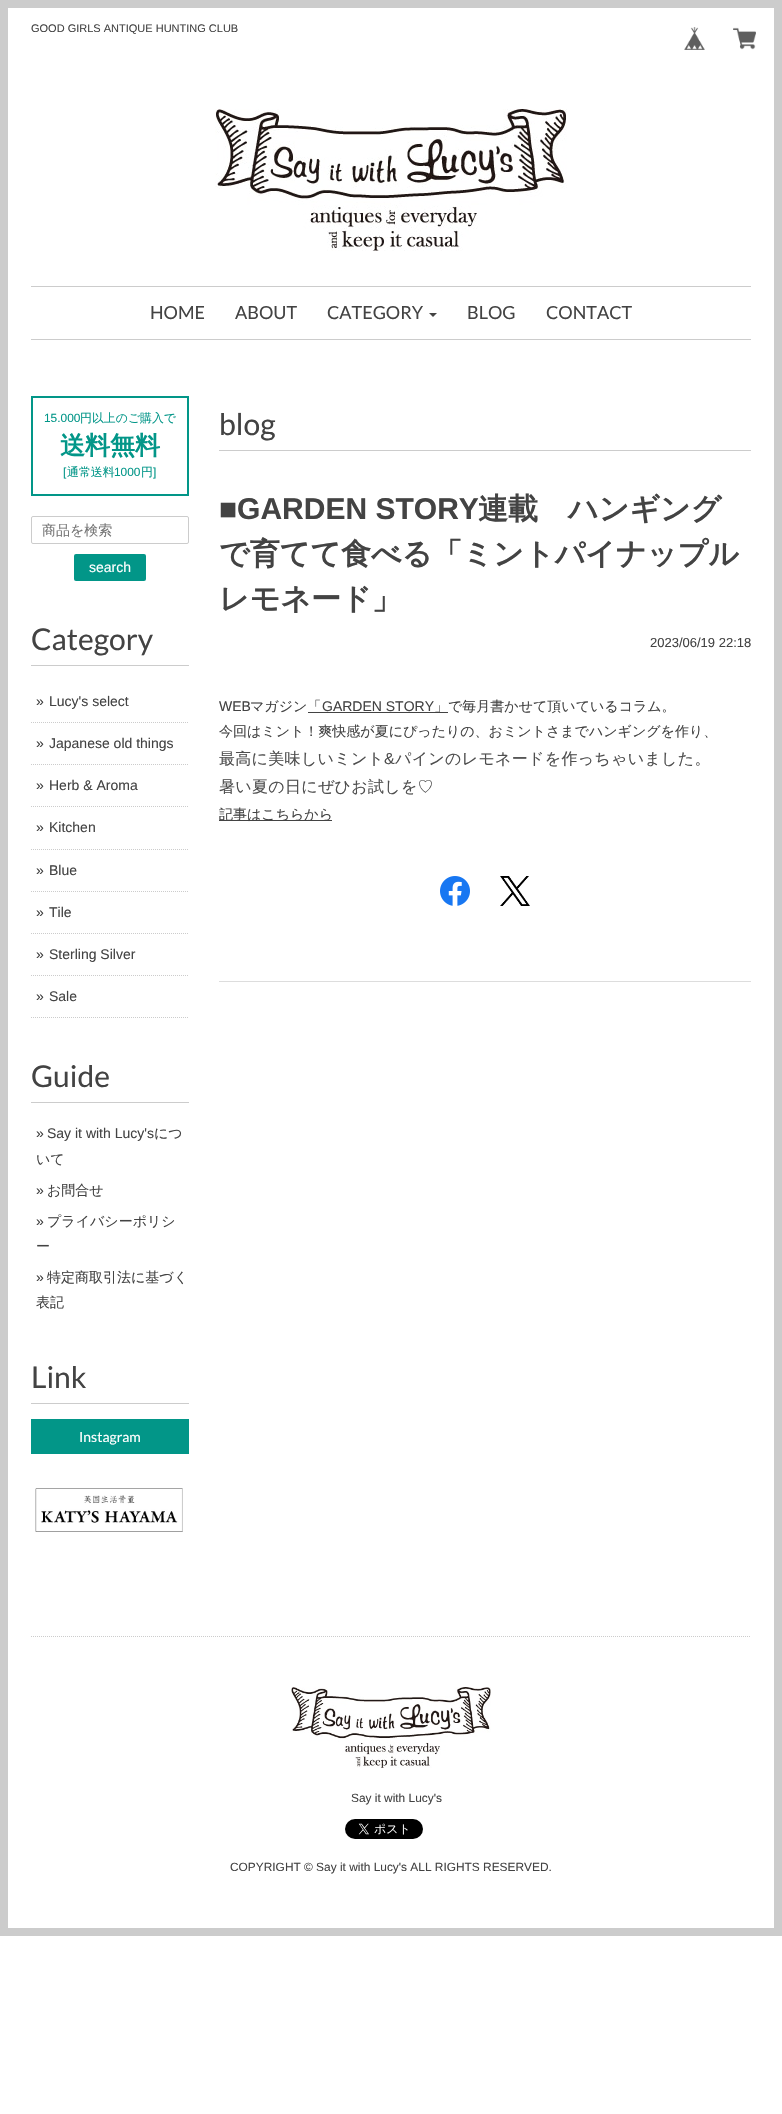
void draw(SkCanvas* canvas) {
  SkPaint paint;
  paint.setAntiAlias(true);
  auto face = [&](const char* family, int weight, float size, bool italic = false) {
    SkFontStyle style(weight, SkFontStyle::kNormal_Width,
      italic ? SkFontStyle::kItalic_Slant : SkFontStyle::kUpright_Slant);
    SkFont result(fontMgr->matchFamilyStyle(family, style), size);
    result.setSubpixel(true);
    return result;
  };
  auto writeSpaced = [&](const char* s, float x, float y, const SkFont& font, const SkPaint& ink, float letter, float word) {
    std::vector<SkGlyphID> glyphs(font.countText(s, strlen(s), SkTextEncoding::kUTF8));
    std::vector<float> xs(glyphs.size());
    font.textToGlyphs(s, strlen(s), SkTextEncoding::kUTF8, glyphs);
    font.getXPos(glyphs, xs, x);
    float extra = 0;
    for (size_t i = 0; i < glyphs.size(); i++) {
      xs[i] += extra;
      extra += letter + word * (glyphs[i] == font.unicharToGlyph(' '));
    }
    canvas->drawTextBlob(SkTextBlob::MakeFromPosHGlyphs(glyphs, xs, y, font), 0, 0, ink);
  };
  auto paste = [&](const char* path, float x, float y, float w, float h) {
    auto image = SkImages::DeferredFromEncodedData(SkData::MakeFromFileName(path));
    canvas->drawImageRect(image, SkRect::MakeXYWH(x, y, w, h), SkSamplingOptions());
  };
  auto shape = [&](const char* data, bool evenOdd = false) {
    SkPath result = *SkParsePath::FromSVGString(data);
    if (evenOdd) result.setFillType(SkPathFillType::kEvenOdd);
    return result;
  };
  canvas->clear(0xffffffff);
  paint.setStroke(true);
  paint.setStrokeWidth(8);
  paint.setColor(0xffcccccc);
  canvas->drawRect(SkRect::MakeXYWH(4, 4, 774, 1928), paint);
  paste("img/1.png", 215, 109, 352, 142);
  paint.setStroke(false);
  canvas->drawRect(SkRect::MakeXYWH(31, 286, 720, 1), paint);
  canvas->drawRect(SkRect::MakeXYWH(31, 339, 720, 1), paint);
  paint.setColor(0xff434343);
  canvas->drawPath(shape("M429 313H437L433 317Z"), paint);
  paste("img/2.png", 684, 27, 21, 23);
  paste("img/3.png", 733, 27, 23, 23);
  paint.setStroke(true);
  paint.setStrokeWidth(2);
  paint.setColor(0xff029688);
  canvas->drawRect(SkRect::MakeXYWH(32, 397, 156, 98), paint);
  paint.setStrokeWidth(1);
  paint.setColor(0xffcccccc);
  canvas->drawRoundRect(SkRect::MakeXYWH(31.5f, 516.5f, 157, 27), 1.5f, 1.5f, paint);
  paint.setStroke(false);
  paint.setColor(0xff029688);
  canvas->drawRoundRect(SkRect::MakeXYWH(74, 554, 72, 27), 2, 2, paint);
  paint.setColor(0xffcccccc);
  canvas->drawRect(SkRect::MakeXYWH(31, 665, 158, 1), paint);
  paint.setStroke(true);
  paint.setPathEffect(SkDashPathEffect::Make({{1, 1}}, 0));
  canvas->drawPath(shape("M31 722.5H189"), paint);
  paint.setPathEffect(nullptr);
  paint.setPathEffect(SkDashPathEffect::Make({{1, 1}}, 0));
  canvas->drawPath(shape("M31 764.5H189"), paint);
  paint.setPathEffect(nullptr);
  paint.setPathEffect(SkDashPathEffect::Make({{1, 1}}, 0));
  canvas->drawPath(shape("M31 806.5H189"), paint);
  paint.setPathEffect(nullptr);
  paint.setPathEffect(SkDashPathEffect::Make({{1, 1}}, 0));
  canvas->drawPath(shape("M31 849.5H189"), paint);
  paint.setPathEffect(nullptr);
  paint.setPathEffect(SkDashPathEffect::Make({{1, 1}}, 0));
  canvas->drawPath(shape("M31 891.5H189"), paint);
  paint.setPathEffect(nullptr);
  paint.setPathEffect(SkDashPathEffect::Make({{1, 1}}, 0));
  canvas->drawPath(shape("M31 933.5H189"), paint);
  paint.setPathEffect(nullptr);
  paint.setPathEffect(SkDashPathEffect::Make({{1, 1}}, 0));
  canvas->drawPath(shape("M31 975.5H189"), paint);
  paint.setPathEffect(nullptr);
  paint.setPathEffect(SkDashPathEffect::Make({{1, 1}}, 0));
  canvas->drawPath(shape("M31 1017.5H189"), paint);
  paint.setPathEffect(nullptr);
  paint.setStroke(false);
  {
    const struct { float x, y, w, h; SkColor color; } items[] = {
      {31, 1102, 158, 1, 0xffcccccc},
      {31, 1403, 158, 1, 0xffcccccc},
      {31, 1419, 158, 35, 0xff029688},
    };
    for (auto [x, y, w, h, color] : items) {
      paint.setColor(color);
      canvas->drawRect(SkRect::MakeXYWH(x, y, w, h), paint);
    }
  }
  paste("img/4.png", 35, 1488, 148, 44);
  {
    const struct { float x, y, w, h; SkColor color; } items[] = {
      {219, 450, 532, 1, 0xffcccccc},
      {219, 981, 532, 1, 0xffdddddd},
      {308, 712, 140, 1, 0xff434343},
      {219, 820, 113, 1, 0xff434343},
    };
    for (auto [x, y, w, h, color] : items) {
      paint.setColor(color);
      canvas->drawRect(SkRect::MakeXYWH(x, y, w, h), paint);
    }
  }
  paste("img/5.png", 440, 876, 30, 30);
  paste("img/6.png", 500, 876, 30, 30);
  paint.setStroke(true);
  paint.setColor(0xffcccccc);
  paint.setPathEffect(SkDashPathEffect::Make({{1, 1}}, 0));
  canvas->drawPath(shape("M31 1636.5H751"), paint);
  paint.setPathEffect(nullptr);
  paste("img/7.png", 291, 1687, 200, 81);
  paste("img/8.png", 345, 1819, 78, 20);
  auto f0 = face("Liberation Sans", 400, 11);
  paint.setStroke(false);
  paint.setColor(0xff434343);
  canvas->drawString("GOOD GIRLS ANTIQUE HUNTING CLUB", 31, 32, f0, paint);
  auto f1 = face("Lato", 400, 18);
  {
    const struct { const char* s; float x, y; } items[] = {
      {"HOME", 150, 319},
      {"ABOUT", 235, 319},
      {"CATEGORY", 327, 319},
      {"BLOG", 467, 319},
      {"CONTACT", 546, 319},
    };
    for (auto [s, x, y] : items) {
      canvas->drawString(s, x, y, f1, paint);
    }
  }
  auto f2 = face("Liberation Sans", 400, 11.9f);
  paint.setColor(0xff029688);
  canvas->drawString("15.000", 44, 422, f2, paint);
  auto f3 = face("WenQuanYi Zen Hei", 500, 11.9f);
  canvas->drawString("円以上のご購入で", 80, 422, f3, paint);
  auto f4 = face("WenQuanYi Zen Hei", 700, 25);
  canvas->drawString("送料無料", 60, 454, f4, paint);
  canvas->drawString("[", 63, 476, f2, paint);
  canvas->drawString("通常送料", 67, 476, f3, paint);
  canvas->drawString("1000", 114, 476, f2, paint);
  canvas->drawString("円", 141, 476, f3, paint);
  canvas->drawString("]", 153, 476, f2, paint);
  auto f5 = face("WenQuanYi Zen Hei", 500, 14);
  paint.setColor(0xff757575);
  canvas->drawString("商品を検索", 42, 535, f5, paint);
  auto f6 = face("Liberation Sans", 400, 14);
  paint.setColor(0xffffffff);
  canvas->drawString("search", 89, 572, f6, paint);
  auto f7 = face("Lato", 400, 30);
  paint.setColor(0xff434343);
  canvas->drawString("Category", 31, 650, f7, paint);
  {
    const struct { const char* s; float x, y; } items[] = {
      {"»", 36, 706},
      {"Lucy's select", 49, 706},
      {"»", 36, 748},
      {"Japanese old things", 49, 748},
      {"»", 36, 790},
      {"Herb & Aroma", 49, 790},
      {"»", 36, 832},
      {"Kitchen", 49, 832},
      {"»", 36, 875},
      {"Blue", 49, 875},
      {"»", 36, 917},
      {"Tile", 49, 917},
      {"»", 36, 959},
      {"Sterling Silver", 49, 959},
      {"»", 36, 1001},
      {"Sale", 49, 1001},
    };
    for (auto [s, x, y] : items) {
      canvas->drawString(s, x, y, f6, paint);
    }
  }
  canvas->drawString("Guide", 31, 1087, f7, paint);
  canvas->drawString("»", 36, 1138, f6, paint);
  canvas->drawString("Say it with Lucy's", 47, 1138, f6, paint);
  canvas->drawString("につ", 154, 1138, f5, paint);
  canvas->drawString("いて", 36, 1164, f5, paint);
  canvas->drawString("»", 36, 1195, f6, paint);
  canvas->drawString("お問合せ", 47, 1195, f5, paint);
  canvas->drawString("»", 36, 1226, f6, paint);
  canvas->drawString("プライバシーポリシ", 47, 1226, f5, paint);
  canvas->drawString("ー", 36, 1251, f5, paint);
  canvas->drawString("»", 36, 1282, f6, paint);
  canvas->drawString("特定商取引法に基づく", 47, 1282, f5, paint);
  canvas->drawString("表記", 36, 1307, f5, paint);
  canvas->drawString("Link", 31, 1388, f7, paint);
  auto f8 = face("Lato", 400, 14);
  paint.setColor(0xffffffff);
  canvas->drawString("Instagram", 79, 1442, f8, paint);
  paint.setColor(0xff434343);
  canvas->drawString("blog", 219, 435, f7, paint);
  auto f9 = face("Liberation Sans", 700, 30);
  canvas->drawString("■GARDEN STORY", 219, 519, f9, paint);
  auto f10 = face("WenQuanYi Zen Hei", 700, 30);
  {
    const struct { const char* s; float x, y; } items[] = {
      {"連載　ハンギング", 478, 519},
      {"で育てて食べる「ミントパイナップル", 219, 564},
      {"レモネード」", 219, 609},
    };
    for (auto [s, x, y] : items) {
      canvas->drawString(s, x, y, f10, paint);
    }
  }
  auto f11 = face("Liberation Sans", 400, 13);
  canvas->drawString("2023/06/19 22:18", 650, 647, f11, paint);
  canvas->drawString("WEB", 219, 711, f6, paint);
  canvas->drawString("マガジン「", 250, 711, f5, paint);
  canvas->drawString("GARDEN STORY", 322, 711, f6, paint);
  canvas->drawString("」で毎月書かせて頂いているコラム。", 434, 711, f5, paint);
  canvas->drawString("今回はミント！爽快感が夏にぴったりの、おミントさまでハンギングを作り、", 219, 736, f5, paint);
  auto f12 = face("WenQuanYi Zen Hei", 500, 16);
  paint.setColor(0xff4e4e4e);
  writeSpaced("最高に美味しいミント", 219, 764, f12, paint, 0.3f, 0);
  auto f13 = face("Liberation Sans", 400, 16);
  writeSpaced("&", 384, 764, f13, paint, 0.3f, 0);
  writeSpaced("パインのレモネードを作っちゃいました。", 395, 764, f12, paint, 0.3f, 0);
  writeSpaced("暑い夏の日にぜひお試しを♡", 219, 792, f12, paint, 0.3f, 0);
  paint.setColor(0xff434343);
  canvas->drawString("記事はこちらから", 219, 819, f5, paint);
  canvas->drawString("Say it with Lucy's", 351, 1802, f2, paint);
  canvas->drawString("COPYRIGHT © Say it with Lucy's ALL RIGHTS RESERVED.", 230, 1871, f2, paint);
}
